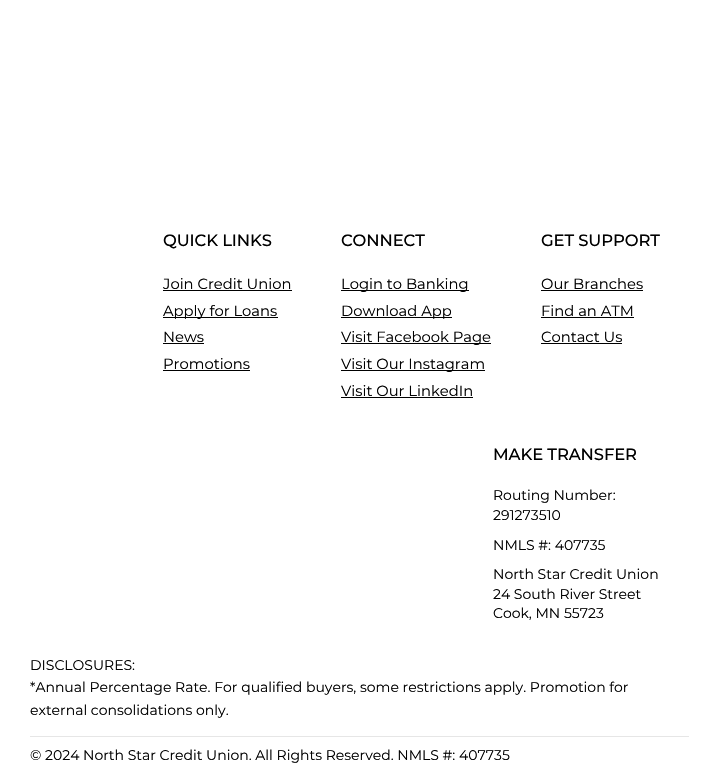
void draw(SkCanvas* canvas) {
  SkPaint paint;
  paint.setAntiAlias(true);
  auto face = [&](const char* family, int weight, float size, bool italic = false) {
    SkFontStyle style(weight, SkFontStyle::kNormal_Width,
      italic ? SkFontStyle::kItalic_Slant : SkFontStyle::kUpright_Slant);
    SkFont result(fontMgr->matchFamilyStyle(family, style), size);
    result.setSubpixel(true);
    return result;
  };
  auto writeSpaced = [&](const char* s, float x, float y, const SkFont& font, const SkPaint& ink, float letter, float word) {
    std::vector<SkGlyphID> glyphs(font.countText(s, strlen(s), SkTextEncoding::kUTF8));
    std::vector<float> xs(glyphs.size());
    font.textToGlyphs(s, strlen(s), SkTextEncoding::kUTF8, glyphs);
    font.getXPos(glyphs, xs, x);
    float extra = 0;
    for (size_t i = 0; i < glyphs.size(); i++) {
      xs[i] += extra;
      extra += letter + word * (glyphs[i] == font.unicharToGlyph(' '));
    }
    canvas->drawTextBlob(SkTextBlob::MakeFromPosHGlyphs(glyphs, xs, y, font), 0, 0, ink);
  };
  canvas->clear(0xffffffff);
  {
    const struct { float x, y, w, h; SkColor color; } items[] = {
      {163, 290, 129, 1, 0xff000000},
      {163, 317, 115, 1, 0xff000000},
      {163, 343, 41, 1, 0xff000000},
      {163, 370, 87, 1, 0xff000000},
      {341, 290, 128, 1, 0xff000000},
      {341, 317, 111, 1, 0xff000000},
      {341, 343, 150, 1, 0xff000000},
      {341, 370, 144, 1, 0xff000000},
      {341, 397, 132, 1, 0xff000000},
      {541, 290, 102, 1, 0xff000000},
      {541, 317, 93, 1, 0xff000000},
      {541, 343, 81, 1, 0xff000000},
      {30, 736, 659, 1, 0xffe6e6e6},
    };
    for (auto [x, y, w, h, color] : items) {
      paint.setColor(color);
      canvas->drawRect(SkRect::MakeXYWH(x, y, w, h), paint);
    }
  }
  auto f0 = face("Montserrat", 500, 16.4f);
  paint.setColor(0xff000000);
  writeSpaced("QUICK LINKS", 163, 246, f0, paint, -0.1f, 0);
  auto f1 = face("Montserrat", 400, 14.75f);
  {
    const struct { const char* s; float x, y; } items[] = {
      {"Join Credit Union", 163, 289},
      {"Apply for Loans", 163, 316},
      {"News", 163, 342},
      {"Promotions", 163, 369},
    };
    for (auto [s, x, y] : items) {
      canvas->drawString(s, x, y, f1, paint);
    }
  }
  writeSpaced("CONNECT", 341, 246, f0, paint, -0.1f, 0);
  {
    const struct { const char* s; float x, y; } items[] = {
      {"Login to Banking", 341, 289},
      {"Download App", 341, 316},
      {"Visit Facebook Page", 341, 342},
      {"Visit Our Instagram", 341, 369},
      {"Visit Our LinkedIn", 341, 396},
    };
    for (auto [s, x, y] : items) {
      canvas->drawString(s, x, y, f1, paint);
    }
  }
  writeSpaced("GET SUPPORT", 541, 246, f0, paint, -0.1f, 0);
  {
    const struct { const char* s; float x, y; } items[] = {
      {"Our Branches", 541, 289},
      {"Find an ATM", 541, 316},
      {"Contact Us", 541, 342},
    };
    for (auto [s, x, y] : items) {
      canvas->drawString(s, x, y, f1, paint);
    }
  }
  writeSpaced("MAKE TRANSFER", 493, 460, f0, paint, -0.1f, 0);
  auto f2 = face("Montserrat", 400, 14);
  {
    const struct { const char* s; float x, y; } items[] = {
      {"Routing Number:", 493, 500},
      {"291273510", 493, 520},
      {"NMLS #: 407735", 493, 550},
      {"North Star Credit Union", 493, 579},
      {"24 South River Street", 493, 599},
      {"Cook, MN 55723", 493, 618},
      {"DISCLOSURES:", 30, 670},
      {"*Annual Percentage Rate. For qualified buyers, some restrictions apply. Promotion for", 30, 692},
      {"external consolidations only.", 30, 715},
      {"© 2024 North Star Credit Union. All Rights Reserved. NMLS #: 407735", 30, 760},
    };
    for (auto [s, x, y] : items) {
      canvas->drawString(s, x, y, f2, paint);
    }
  }
}
